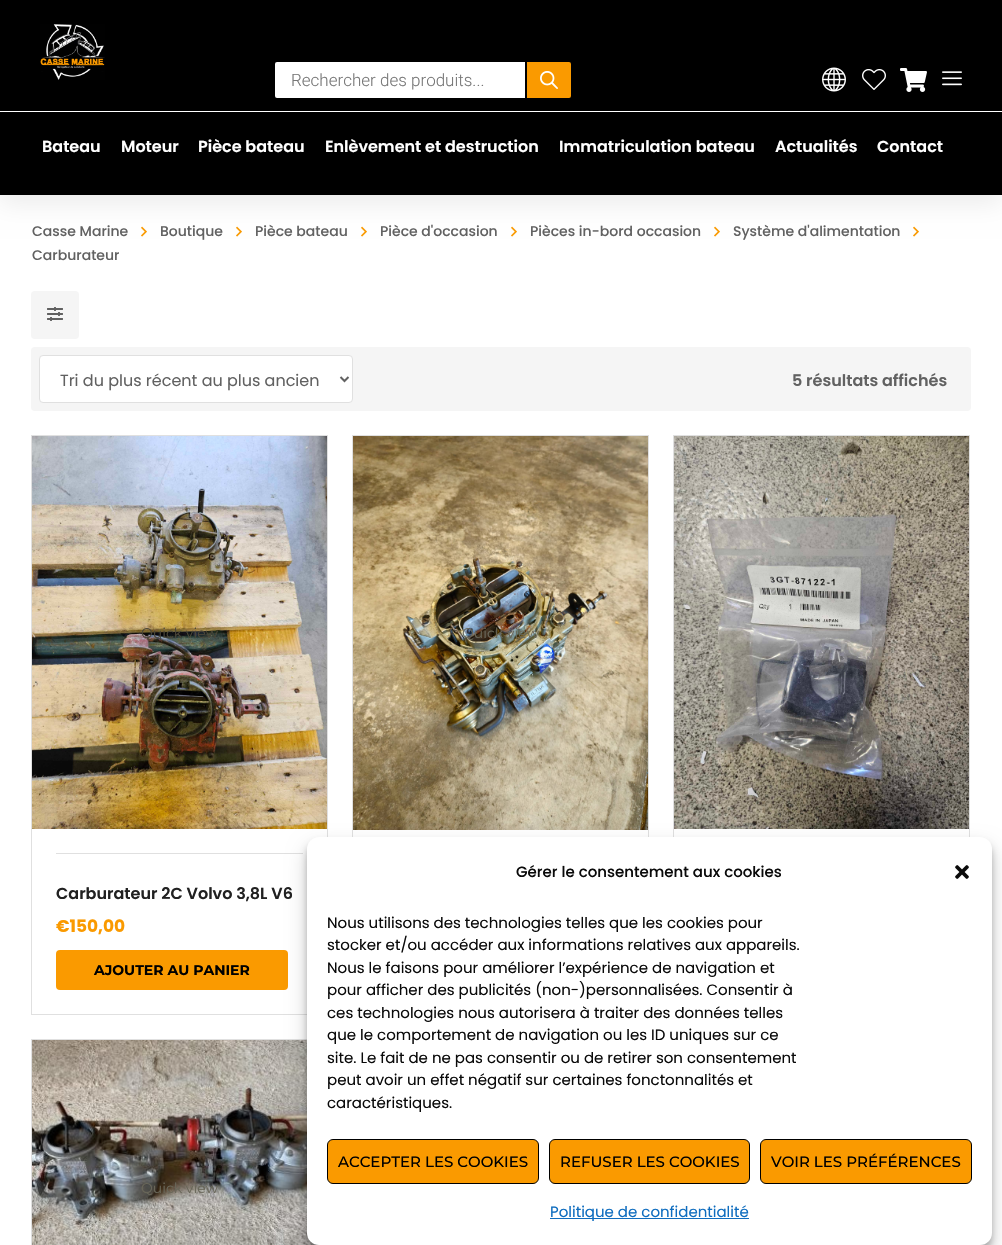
void draw(SkCanvas* canvas) {
  SkPaint paint;
  paint.setAntiAlias(true);
  auto face = [&](const char* family, int weight, float size, bool italic = false) {
    SkFontStyle style(weight, SkFontStyle::kNormal_Width,
      italic ? SkFontStyle::kItalic_Slant : SkFontStyle::kUpright_Slant);
    SkFont result(fontMgr->matchFamilyStyle(family, style), size);
    result.setSubpixel(true);
    return result;
  };
  auto paste = [&](const char* path, float x, float y, float w, float h) {
    auto image = SkImages::DeferredFromEncodedData(SkData::MakeFromFileName(path));
    canvas->drawImageRect(image, SkRect::MakeXYWH(x, y, w, h), SkSamplingOptions());
  };
  auto shape = [&](const char* data, bool evenOdd = false) {
    SkPath result = *SkParsePath::FromSVGString(data);
    if (evenOdd) result.setFillType(SkPathFillType::kEvenOdd);
    return result;
  };
  canvas->clear(0xffffffff);
  paste("img/7.png", 141, 226, 6, 11);
  paste("img/7.png", 236, 226, 6, 11);
  paste("img/7.png", 361, 226, 6, 11);
  paste("img/7.png", 511, 226, 6, 11);
  paste("img/7.png", 714, 226, 6, 11);
  paste("img/7.png", 913, 226, 6, 11);
  paint.setColor(0x14000000);
  paint.setMaskFilter(SkMaskFilter::MakeBlur(kNormal_SkBlurStyle, 12));
  canvas->drawRect(SkRect::MakeXYWH(0, 8, 1002, 195), paint);
  paint.setMaskFilter(nullptr);
  paint.setColor(0xff000000);
  canvas->drawRect(SkRect::MakeXYWH(0, 0, 1002, 195), paint);
  paste("img/1.png", 40, 24, 65, 56);
  paint.setColor(0xffffffff);
  canvas->drawRoundRect(SkRect::MakeXYWH(274, 61, 298, 38), 3, 3, paint);
  paint.setStroke(true);
  paint.setStrokeWidth(2);
  paint.setColor(0xff000000);
  canvas->drawRoundRect(SkRect::MakeXYWH(274, 61, 298, 38), 3, 3, paint);
  paint.setStroke(false);
  paint.setColor(0xfffa9a00);
  canvas->drawPath(shape("M526 61H569C570.5 61 572 62.5 572 64V96C572 97.5 570.5 99 569 99H526Z"), paint);
  paint.setStroke(true);
  paint.setColor(0xff000000);
  canvas->drawPath(shape("M526 61H569C570.5 61 572 62.5 572 64V96C572 97.5 570.5 99 569 99H526Z"), paint);
  paste("img/2.png", 540, 71, 18, 18);
  paste("img/3.png", 822, 67, 24, 25);
  paste("img/4.png", 862, 69, 24, 21);
  paste("img/5.png", 900, 68, 27, 24);
  paste("img/6.png", 942, 71, 20, 15);
  paint.setStroke(false);
  paint.setColor(0xffffffff);
  canvas->drawRect(SkRect::MakeXYWH(0, 111, 1002, 1), paint);
  paint.setColor(0xfff5f5f5);
  canvas->drawRoundRect(SkRect::MakeXYWH(31, 291, 48, 48), 4, 4, paint);
  paste("img/8.png", 47, 307, 16, 14);
  canvas->drawRoundRect(SkRect::MakeXYWH(31, 347, 940, 64), 4, 4, paint);
  paint.setColor(0xffffffff);
  canvas->drawRoundRect(SkRect::MakeXYWH(39.5f, 355.5f, 313, 47), 3.5f, 3.5f, paint);
  paint.setStroke(true);
  paint.setStrokeWidth(1);
  paint.setColor(0xffe0e0e0);
  canvas->drawRoundRect(SkRect::MakeXYWH(39.5f, 355.5f, 313, 47), 3.5f, 3.5f, paint);
  paint.setStrokeWidth(2);
  paint.setColor(0xff616161);
  canvas->drawPath(shape("M340.5 377L344.5 381L348.5 377"), paint);
  paint.setStrokeWidth(1);
  paint.setColor(0xffe0e0e0);
  canvas->drawRect(SkRect::MakeXYWH(31.5f, 435.5f, 296, 579), paint);
  paste("img/9.png", 32, 436, 295, 393);
  paint.setStroke(false);
  canvas->drawRect(SkRect::MakeXYWH(56, 853, 247, 1), paint);
  paint.setColor(0xfffa9a00);
  canvas->drawRoundRect(SkRect::MakeXYWH(56, 950, 232, 40), 4, 4, paint);
  paint.setStroke(true);
  paint.setColor(0xffe0e0e0);
  canvas->drawRect(SkRect::MakeXYWH(352.5f, 435.5f, 296, 612), paint);
  paste("img/10.png", 353, 436, 295, 394);
  canvas->drawRect(SkRect::MakeXYWH(673.5f, 435.5f, 296, 579), paint);
  paste("img/11.png", 674, 436, 295, 393);
  canvas->drawRect(SkRect::MakeXYWH(31.5f, 1039.5f, 296, 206), paint);
  paste("img/12.png", 32, 1040, 287, 205);
  paint.setStroke(false);
  paint.setColor(0x3b000000);
  paint.setMaskFilter(SkMaskFilter::MakeBlur(kNormal_SkBlurStyle, 3));
  canvas->drawRoundRect(SkRect::MakeXYWH(307, 843, 685, 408), 12, 12, paint);
  paint.setMaskFilter(nullptr);
  paint.setColor(0x30000000);
  paint.setMaskFilter(SkMaskFilter::MakeBlur(kNormal_SkBlurStyle, 10));
  canvas->drawRoundRect(SkRect::MakeXYWH(307, 847, 685, 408), 12, 12, paint);
  paint.setMaskFilter(nullptr);
  paint.setColor(0xffffffff);
  canvas->drawRoundRect(SkRect::MakeXYWH(307, 837, 685, 408), 12, 12, paint);
  paste("img/13.png", 955, 865, 14, 14);
  paint.setColor(0xfffa9a00);
  canvas->drawRoundRect(SkRect::MakeXYWH(327.5f, 1139.5f, 211, 44), 5.5f, 5.5f, paint);
  paint.setStroke(true);
  paint.setColor(0xff000000);
  canvas->drawRoundRect(SkRect::MakeXYWH(327.5f, 1139.5f, 211, 44), 5.5f, 5.5f, paint);
  paint.setStroke(false);
  paint.setColor(0xfffa9a00);
  canvas->drawRoundRect(SkRect::MakeXYWH(549.5f, 1139.5f, 200, 44), 5.5f, 5.5f, paint);
  paint.setStroke(true);
  paint.setColor(0xff000000);
  canvas->drawRoundRect(SkRect::MakeXYWH(549.5f, 1139.5f, 200, 44), 5.5f, 5.5f, paint);
  paint.setStroke(false);
  paint.setColor(0xfffa9a00);
  canvas->drawRoundRect(SkRect::MakeXYWH(760.5f, 1139.5f, 211, 44), 5.5f, 5.5f, paint);
  paint.setStroke(true);
  paint.setColor(0xff000000);
  canvas->drawRoundRect(SkRect::MakeXYWH(760.5f, 1139.5f, 211, 44), 5.5f, 5.5f, paint);
  paint.setStroke(false);
  paint.setColor(0xff0f6dbf);
  canvas->drawRect(SkRect::MakeXYWH(550, 1218, 199, 1), paint);
  auto f0 = face("Roboto", 300, 17);
  paint.setColor(0xff777777);
  canvas->drawString("Rechercher des produits...", 291, 86, f0, paint);
  auto f1 = face("Poppins", 600, 16);
  paint.setColor(0xffffffff);
  {
    const struct { const char* s; float x, y; } items[] = {
      {"Bateau", 42, 152},
      {"Moteur", 121, 152},
      {"Pièce bateau", 198, 152},
      {"Enlèvement et destruction", 325, 152},
      {"Immatriculation bateau", 559, 152},
      {"Actualités", 775, 152},
      {"Contact", 877, 152},
    };
    for (auto [s, x, y] : items) {
      canvas->drawString(s, x, y, f1, paint);
    }
  }
  auto f2 = face("Poppins", 500, 14);
  paint.setColor(0xff616161);
  {
    const struct { const char* s; float x, y; } items[] = {
      {"Casse Marine", 32, 236},
      {"Boutique", 160, 236},
      {"Pièce bateau", 255, 236},
      {"Pièce d'occasion", 380, 236},
      {"Pièces in-bord occasion", 530, 236},
      {"Système d'alimentation", 733, 236},
      {"Carburateur", 32, 260},
    };
    for (auto [s, x, y] : items) {
      canvas->drawString(s, x, y, f2, paint);
    }
  }
  auto f3 = face("Poppins", 400, 16);
  canvas->drawString("Tri du plus récent au plus ancien", 60, 386, f3, paint);
  canvas->drawString("5 résultats affichés", 792, 386, f1, paint);
  auto f4 = face("Montserrat", 400, 14);
  paint.setColor(0xff4a4638);
  canvas->drawString("Quick view", 141, 638, f4, paint);
  paint.setColor(0xff212121);
  canvas->drawString("Carburateur 2C Volvo 3,8L V6", 56, 899, f1, paint);
  auto f5 = face("Poppins", 700, 17);
  paint.setColor(0xfffa9a00);
  canvas->drawString("€150,00", 56, 932, f5, paint);
  auto f6 = face("Montserrat", 700, 14);
  paint.setColor(0xff000000);
  canvas->drawString("AJOUTER AU PANIER", 94, 975, f6, paint);
  paint.setColor(0xff696759);
  canvas->drawString("Quick view", 462, 638, f4, paint);
  canvas->drawString("Quick view", 141, 1193, f4, paint);
  auto f7 = face("Poppins", 500, 15);
  paint.setColor(0xff0a0a0a);
  canvas->drawString("Gérer le consentement aux cookies", 516, 877, f7, paint);
  auto f8 = face("Poppins", 400, 15);
  {
    const struct { const char* s; float x, y; } items[] = {
      {"Nous utilisons des technologies telles que les cookies pour", 327, 928},
      {"stocker et/ou accéder aux informations relatives aux appareils.", 327, 950},
      {"Nous le faisons pour améliorer l’expérience de navigation et", 327, 973},
      {"pour afficher des publicités (non-)personnalisées. Consentir à", 327, 995},
      {"ces technologies nous autorisera à traiter des données telles", 327, 1018},
      {"que le comportement de navigation ou les ID uniques sur ce", 327, 1040},
      {"site. Le fait de ne pas consentir ou de retirer son consentement", 327, 1063},
      {"peut avoir un effet négatif sur certaines fonctonnalités et", 327, 1085},
      {"caractéristiques.", 327, 1108},
    };
    for (auto [s, x, y] : items) {
      canvas->drawString(s, x, y, f8, paint);
    }
  }
  auto f9 = face("Montserrat", 500, 15);
  paint.setColor(0xff000000);
  {
    const struct { const char* s; float x, y; } items[] = {
      {"ACCEPTER LES COOKIES", 338, 1167},
      {"REFUSER LES COOKIES", 560, 1167},
      {"VOIR LES PRÉFÉRENCES", 771, 1167},
    };
    for (auto [s, x, y] : items) {
      canvas->drawString(s, x, y, f9, paint);
    }
  }
  paint.setColor(0xff0f6dbf);
  canvas->drawString("Politique de confidentialité", 550, 1217, f8, paint);
}
